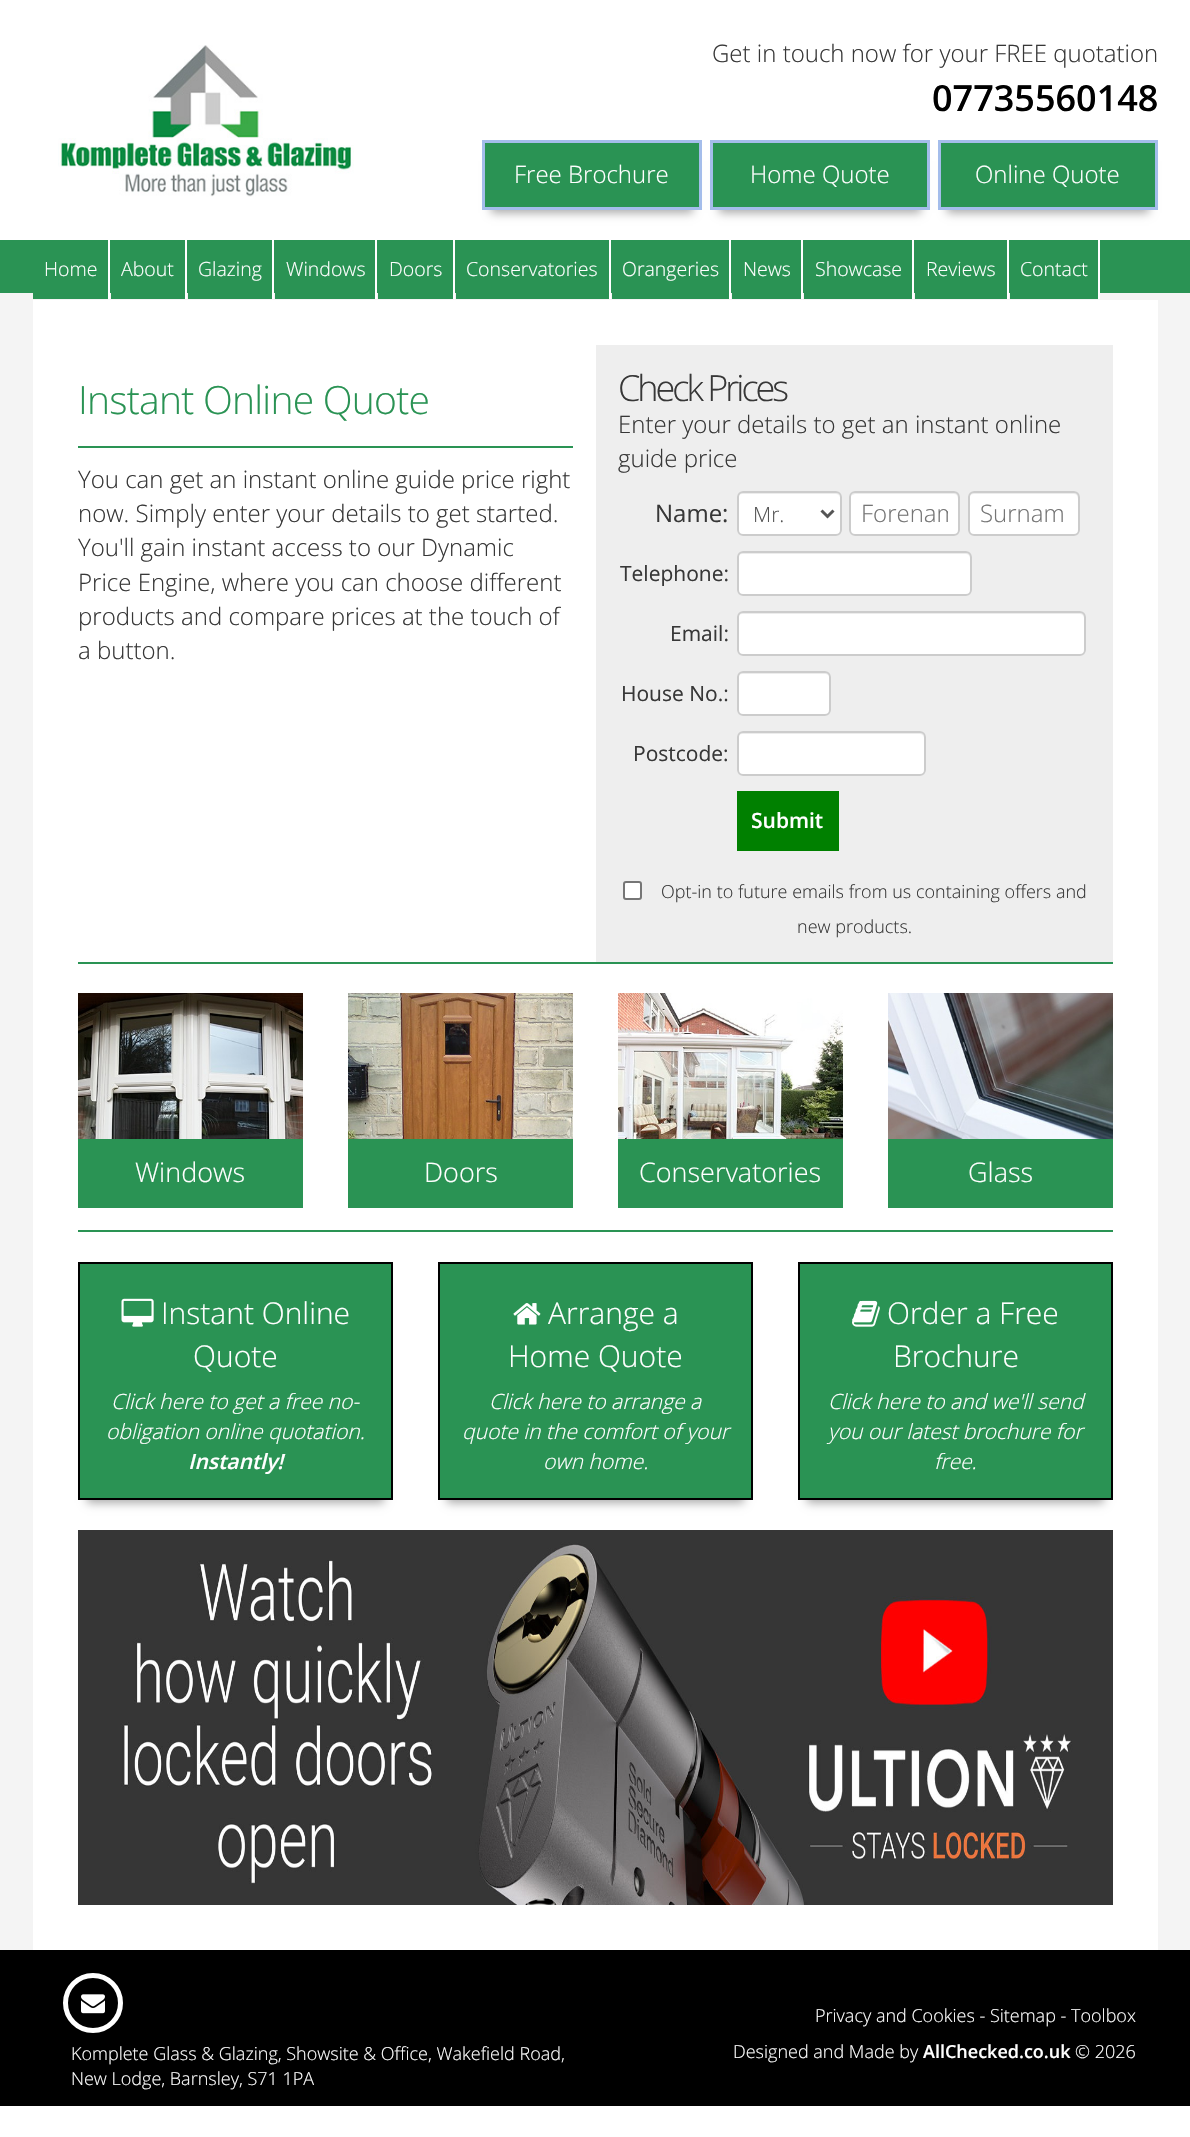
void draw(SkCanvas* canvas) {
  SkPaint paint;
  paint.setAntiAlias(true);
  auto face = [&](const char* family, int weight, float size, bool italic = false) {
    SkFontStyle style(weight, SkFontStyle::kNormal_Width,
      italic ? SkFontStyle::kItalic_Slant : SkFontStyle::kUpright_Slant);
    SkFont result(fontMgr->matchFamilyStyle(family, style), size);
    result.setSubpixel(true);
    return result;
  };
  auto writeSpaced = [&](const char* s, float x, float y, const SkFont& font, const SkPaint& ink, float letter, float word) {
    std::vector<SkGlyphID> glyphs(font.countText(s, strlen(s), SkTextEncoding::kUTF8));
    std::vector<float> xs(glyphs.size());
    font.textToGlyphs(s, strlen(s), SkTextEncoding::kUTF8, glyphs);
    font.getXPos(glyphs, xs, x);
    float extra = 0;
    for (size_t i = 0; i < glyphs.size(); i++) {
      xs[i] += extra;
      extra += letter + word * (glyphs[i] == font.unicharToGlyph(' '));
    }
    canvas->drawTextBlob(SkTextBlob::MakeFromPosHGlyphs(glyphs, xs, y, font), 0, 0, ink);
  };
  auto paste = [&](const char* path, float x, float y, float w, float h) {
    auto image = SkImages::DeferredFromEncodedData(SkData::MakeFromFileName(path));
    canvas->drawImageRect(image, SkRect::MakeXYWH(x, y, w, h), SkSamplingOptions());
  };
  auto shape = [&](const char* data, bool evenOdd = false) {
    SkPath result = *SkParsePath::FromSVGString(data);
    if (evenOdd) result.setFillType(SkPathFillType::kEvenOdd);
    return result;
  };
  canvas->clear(0xffffffff);
  paste("img/1.png", 58, 45, 296, 152);
  paint.setColor(0xffaaaaaa);
  paint.setMaskFilter(SkMaskFilter::MakeBlur(kNormal_SkBlurStyle, 4.5f));
  canvas->drawRect(SkRect::MakeXYWH(491, 161, 202, 52), paint);
  paint.setMaskFilter(nullptr);
  paint.setColor(0xff2a9354);
  canvas->drawRect(SkRect::MakeXYWH(483.5f, 141.5f, 217, 67), paint);
  paint.setStroke(true);
  paint.setStrokeWidth(3);
  paint.setColor(0xffa4bdeb);
  canvas->drawRect(SkRect::MakeXYWH(483.5f, 141.5f, 217, 67), paint);
  paint.setStroke(false);
  paint.setColor(0xffaaaaaa);
  paint.setMaskFilter(SkMaskFilter::MakeBlur(kNormal_SkBlurStyle, 4.5f));
  canvas->drawRect(SkRect::MakeXYWH(719, 161, 202, 52), paint);
  paint.setMaskFilter(nullptr);
  paint.setColor(0xff2a9354);
  canvas->drawRect(SkRect::MakeXYWH(711.5f, 141.5f, 217, 67), paint);
  paint.setStroke(true);
  paint.setColor(0xffa4bdeb);
  canvas->drawRect(SkRect::MakeXYWH(711.5f, 141.5f, 217, 67), paint);
  paint.setStroke(false);
  paint.setColor(0xffaaaaaa);
  paint.setMaskFilter(SkMaskFilter::MakeBlur(kNormal_SkBlurStyle, 4.5f));
  canvas->drawRect(SkRect::MakeXYWH(947, 161, 202, 52), paint);
  paint.setMaskFilter(nullptr);
  paint.setColor(0xff2a9354);
  canvas->drawRect(SkRect::MakeXYWH(939.5f, 141.5f, 217, 67), paint);
  paint.setStroke(true);
  paint.setColor(0xffa4bdeb);
  canvas->drawRect(SkRect::MakeXYWH(939.5f, 141.5f, 217, 67), paint);
  paint.setStroke(false);
  {
    const struct { float x, y, w, h; SkColor color; } items[] = {
      {0, 240, 1190, 53, 0xff2a9354},
      {0, 293, 1190, 1657, 0xfff4f4f4},
      {33, 293, 75, 6, 0xff2a9354},
      {108, 240, 2, 59, 0xffffffff},
      {111, 293, 74, 6, 0xff2a9354},
      {185, 240, 2, 59, 0xffffffff},
      {188, 293, 84, 6, 0xff2a9354},
      {272, 240, 2, 59, 0xffffffff},
      {275, 293, 100, 6, 0xff2a9354},
      {375, 240, 2, 59, 0xffffffff},
      {378, 293, 75, 6, 0xff2a9354},
      {453, 240, 2, 59, 0xffffffff},
      {456, 293, 153, 6, 0xff2a9354},
      {609, 240, 2, 59, 0xffffffff},
      {612, 293, 117, 6, 0xff2a9354},
      {729, 240, 2, 59, 0xffffffff},
      {732, 293, 69, 6, 0xff2a9354},
      {801, 240, 2, 59, 0xffffffff},
      {804, 293, 108, 6, 0xff2a9354},
      {912, 240, 2, 59, 0xffffffff},
      {915, 293, 92, 6, 0xff2a9354},
      {1007, 240, 2, 59, 0xffffffff},
      {1010, 293, 88, 6, 0xff2a9354},
      {1098, 240, 2, 59, 0xffffffff},
      {33, 300, 1125, 1650, 0xffffffff},
      {78, 446, 495, 2, 0xff2a9354},
      {596, 345, 517, 617, 0xffeeeeee},
    };
    for (auto [x, y, w, h, color] : items) {
      paint.setColor(color);
      canvas->drawRect(SkRect::MakeXYWH(x, y, w, h), paint);
    }
  }
  paint.setColor(0xffffffff);
  canvas->drawRoundRect(SkRect::MakeXYWH(737, 491, 105, 45), 6, 6, paint);
  paint.setColor(0xffececec);
  canvas->drawPath(shape("M742 494H836C838 494 840 496 840 498C840 488 825 492 820 492H758C753 492 738 488 738 498C738 496 740 494 742 494Z"), paint);
  paint.setStroke(true);
  paint.setStrokeWidth(2);
  paint.setColor(0xffcccccc);
  canvas->drawRoundRect(SkRect::MakeXYWH(738, 492, 103, 43), 5, 5, paint);
  paint.setStrokeWidth(3);
  paint.setColor(0xff555555);
  canvas->drawPath(shape("M821.5 510.5L827.5 516.5L833.5 510.5"), paint);
  paint.setStroke(false);
  paint.setColor(0xffffffff);
  canvas->drawRoundRect(SkRect::MakeXYWH(849, 491, 111, 45), 6, 6, paint);
  paint.setColor(0xffececec);
  canvas->drawPath(shape("M855 494H954C959 494 958 501 958 504V532C959 531 959 530 959 529V497C959 494 957 492 954 492H856C854 492 852 494 851 496C852 495 854 494 855 494Z"), paint);
  paint.setStroke(true);
  paint.setStrokeWidth(2);
  paint.setColor(0xffcccccc);
  canvas->drawRoundRect(SkRect::MakeXYWH(850, 492, 109, 43), 5, 5, paint);
  paint.setStroke(false);
  paint.setColor(0xffffffff);
  canvas->drawRoundRect(SkRect::MakeXYWH(968, 491, 112, 45), 6, 6, paint);
  paint.setColor(0xffececec);
  canvas->drawPath(shape("M974 494H1074C1079 494 1078 501 1078 504V532C1079 531 1079 530 1079 529V497C1079 494 1077 492 1074 492H974C971 492 969 494 969 497V498C969 496 971 494 974 494Z"), paint);
  paint.setStroke(true);
  paint.setColor(0xffcccccc);
  canvas->drawRoundRect(SkRect::MakeXYWH(969, 492, 110, 43), 5, 5, paint);
  paint.setStroke(false);
  paint.setColor(0xffffffff);
  canvas->drawRoundRect(SkRect::MakeXYWH(737, 551, 235, 45), 6, 6, paint);
  paint.setColor(0xffececec);
  canvas->drawPath(shape("M742 554H966C968 554 970 556 970 558V592C971 591 971 590 971 589V557C971 554 969 552 966 552H743C740 552 738 554 738 557V558C738 556 740 554 742 554Z"), paint);
  paint.setStroke(true);
  paint.setColor(0xffcccccc);
  canvas->drawRoundRect(SkRect::MakeXYWH(738, 552, 233, 43), 5, 5, paint);
  paint.setStroke(false);
  paint.setColor(0xffffffff);
  canvas->drawRoundRect(SkRect::MakeXYWH(737, 611, 349, 45), 6, 6, paint);
  paint.setColor(0xffececec);
  canvas->drawPath(shape("M742 614H1080C1082 614 1084 616 1084 618V652C1085 651 1085 650 1085 649V617C1085 614 1083 612 1080 612H743C740 612 738 614 738 617V618C738 616 740 614 742 614Z"), paint);
  paint.setStroke(true);
  paint.setColor(0xffcccccc);
  canvas->drawRoundRect(SkRect::MakeXYWH(738, 612, 347, 43), 5, 5, paint);
  paint.setStroke(false);
  paint.setColor(0xffffffff);
  canvas->drawRoundRect(SkRect::MakeXYWH(737, 671, 94, 45), 6, 6, paint);
  paint.setColor(0xffececec);
  canvas->drawPath(shape("M742 674H825C827 674 830 676 830 678C830 669 817 672 811 672H757C751 672 738 669 738 678C738 676 740 674 742 674Z"), paint);
  paint.setStroke(true);
  paint.setColor(0xffcccccc);
  canvas->drawRoundRect(SkRect::MakeXYWH(738, 672, 92, 43), 5, 5, paint);
  paint.setStroke(false);
  paint.setColor(0xffffffff);
  canvas->drawRoundRect(SkRect::MakeXYWH(737, 731, 189, 45), 6, 6, paint);
  paint.setColor(0xffececec);
  canvas->drawPath(shape("M742 734H920C922 734 924 736 924 738C924 735 923 733 920 732H742C739 733 738 735 738 738C738 736 740 734 742 734Z"), paint);
  paint.setStroke(true);
  paint.setColor(0xffcccccc);
  canvas->drawRoundRect(SkRect::MakeXYWH(738, 732, 187, 43), 5, 5, paint);
  paint.setStroke(false);
  paint.setColor(0xff008000);
  canvas->drawRect(SkRect::MakeXYWH(737, 791, 102, 60), paint);
  paint.setColor(0xffffffff);
  canvas->drawRoundRect(SkRect::MakeXYWH(624, 882, 17, 17), 2, 2, paint);
  paint.setStroke(true);
  paint.setColor(0xff767676);
  canvas->drawRoundRect(SkRect::MakeXYWH(624, 882, 17, 17), 2, 2, paint);
  paint.setStroke(false);
  paint.setColor(0xff2a9354);
  canvas->drawRect(SkRect::MakeXYWH(78, 962, 1035, 2), paint);
  paste("img/2.png", 78, 993, 225, 146);
  canvas->drawRect(SkRect::MakeXYWH(78, 1139, 225, 69), paint);
  paste("img/3.png", 348, 993, 225, 146);
  canvas->drawRect(SkRect::MakeXYWH(348, 1139, 225, 69), paint);
  paste("img/4.png", 618, 993, 225, 146);
  canvas->drawRect(SkRect::MakeXYWH(618, 1139, 225, 69), paint);
  paste("img/5.png", 888, 993, 225, 146);
  canvas->drawRect(SkRect::MakeXYWH(888, 1139, 225, 69), paint);
  canvas->drawRect(SkRect::MakeXYWH(78, 1230, 1035, 2), paint);
  paint.setColor(0xffaaaaaa);
  paint.setMaskFilter(SkMaskFilter::MakeBlur(kNormal_SkBlurStyle, 4.5f));
  canvas->drawRect(SkRect::MakeXYWH(87, 1283, 297, 220), paint);
  paint.setMaskFilter(nullptr);
  paint.setColor(0xff2a9354);
  canvas->drawRect(SkRect::MakeXYWH(79, 1263, 313, 236), paint);
  paint.setStroke(true);
  paint.setColor(0xff000000);
  canvas->drawRect(SkRect::MakeXYWH(79, 1263, 313, 236), paint);
  paste("img/6.png", 121, 1298, 33, 29);
  paint.setStroke(false);
  paint.setColor(0xffaaaaaa);
  paint.setMaskFilter(SkMaskFilter::MakeBlur(kNormal_SkBlurStyle, 4.5f));
  canvas->drawRect(SkRect::MakeXYWH(447, 1283, 297, 220), paint);
  paint.setMaskFilter(nullptr);
  paint.setColor(0xff2a9354);
  canvas->drawRect(SkRect::MakeXYWH(439, 1263, 313, 236), paint);
  paint.setStroke(true);
  paint.setColor(0xff000000);
  canvas->drawRect(SkRect::MakeXYWH(439, 1263, 313, 236), paint);
  paste("img/7.png", 513, 1303, 28, 22);
  paint.setStroke(false);
  paint.setColor(0xffaaaaaa);
  paint.setMaskFilter(SkMaskFilter::MakeBlur(kNormal_SkBlurStyle, 4.5f));
  canvas->drawRect(SkRect::MakeXYWH(807, 1283, 297, 220), paint);
  paint.setMaskFilter(nullptr);
  paint.setColor(0xff2a9354);
  canvas->drawRect(SkRect::MakeXYWH(799, 1263, 313, 236), paint);
  paint.setStroke(true);
  paint.setColor(0xff000000);
  canvas->drawRect(SkRect::MakeXYWH(799, 1263, 313, 236), paint);
  paste("img/8.png", 852, 1300, 28, 27);
  paste("img/9.png", 78, 1530, 1035, 375);
  paint.setStroke(false);
  canvas->drawRect(SkRect::MakeXYWH(0, 1950, 1190, 156), paint);
  paint.setStroke(true);
  paint.setStrokeWidth(5);
  paint.setColor(0xffffffff);
  canvas->drawCircle(93, 2003, 27.5f, paint);
  paste("img/10.png", 81, 1994, 24, 20);
  auto f0 = face("Open Sans", 300, 24);
  paint.setStroke(false);
  paint.setColor(0xff373737);
  canvas->drawString("Get in touch now for your FREE quotation", 712, 62, f0, paint);
  auto f1 = face("Open Sans", 600, 36);
  paint.setColor(0xff000000);
  canvas->drawString("07735560148", 932, 111, f1, paint);
  paint.setColor(0xffffffff);
  {
    const struct { const char* s; float x, y; } items[] = {
      {"Free Brochure", 514, 183},
      {"Home Quote", 750, 183},
      {"Online Quote", 975, 183},
    };
    for (auto [s, x, y] : items) {
      canvas->drawString(s, x, y, f0, paint);
    }
  }
  auto f2 = face("Open Sans", 300, 19.5f);
  {
    const struct { const char* s; float x, y; } items[] = {
      {"Home", 44, 276},
      {"About", 121, 276},
      {"Glazing", 198, 276},
      {"Windows", 286, 276},
      {"Doors", 389, 276},
      {"Conservatories", 466, 276},
      {"Orangeries", 622, 276},
      {"News", 743, 276},
      {"Showcase", 815, 276},
      {"Reviews", 926, 276},
      {"Contact", 1020, 276},
    };
    for (auto [s, x, y] : items) {
      canvas->drawString(s, x, y, f2, paint);
    }
  }
  auto f3 = face("Open Sans", 300, 39);
  paint.setColor(0xff2a9354);
  writeSpaced("Instant Online Quote", 78, 414, f3, paint, -0.75f, 0);
  paint.setColor(0xff373737);
  {
    const struct { const char* s; float x, y; } items[] = {
      {"You can get an instant online guide price right", 78, 488},
      {"now. Simply enter your details to get started.", 78, 522},
      {"You'll gain instant access to our Dynamic", 78, 556},
      {"Price Engine, where you can choose different", 78, 591},
      {"products and compare prices at the touch of", 78, 625},
      {"a button.", 78, 659},
    };
    for (auto [s, x, y] : items) {
      canvas->drawString(s, x, y, f0, paint);
    }
  }
  auto f4 = face("Open Sans", 300, 36);
  writeSpaced("Check Prices", 618, 401, f4, paint, -3, 0);
  canvas->drawString("Enter your details to get an instant online", 618, 433, f0, paint);
  canvas->drawString("guide price", 618, 467, f0, paint);
  auto f5 = face("Open Sans", 400, 24);
  canvas->drawString("Name:", 655, 522, f5, paint);
  auto f6 = face("Open Sans", 300, 21);
  paint.setColor(0xff555555);
  canvas->drawString("Mr.", 753, 522, f6, paint);
  canvas->save();
  canvas->clipRect(SkRect::MakeXYWH(861, 497, 87, 33));
  paint.setColor(0xff757575);
  canvas->drawString("Forenam", 861, 522, f0, paint);
  canvas->restore();
  canvas->drawString("Surnam", 980, 522, f0, paint);
  auto f7 = face("Open Sans", 400, 21);
  paint.setColor(0xff373737);
  {
    const struct { const char* s; float x, y; } items[] = {
      {"Telephone:", 620, 581},
      {"Email:", 670, 641},
      {"House No.:", 621, 701},
      {"Postcode:", 633, 761},
    };
    for (auto [s, x, y] : items) {
      canvas->drawString(s, x, y, f7, paint);
    }
  }
  auto f8 = face("Open Sans", 600, 21);
  paint.setColor(0xffffffff);
  canvas->drawString("Submit", 751, 828, f8, paint);
  auto f9 = face("Open Sans", 300, 18);
  paint.setColor(0xff373737);
  canvas->drawString("Opt-in to future emails from us containing offers and", 661, 898, f9, paint);
  canvas->drawString("new products.", 797, 933, f9, paint);
  auto f10 = face("Open Sans", 300, 27);
  paint.setColor(0xffffffff);
  {
    const struct { const char* s; float x, y; } items[] = {
      {"Windows", 135, 1182},
      {"Doors", 424, 1182},
      {"Conservatories", 639, 1182},
      {"Glass", 968, 1182},
    };
    for (auto [s, x, y] : items) {
      canvas->drawString(s, x, y, f10, paint);
    }
  }
  auto f11 = face("Open Sans", 300, 30);
  canvas->drawString("Instant Online", 161, 1324, f11, paint);
  canvas->drawString("Quote", 193, 1367, f11, paint);
  auto f12 = face("Open Sans", 300, 21, true);
  canvas->drawString("Click here to get a free no-", 111, 1409, f12, paint);
  canvas->drawString("obligation online quotation.", 106, 1439, f12, paint);
  auto f13 = face("Open Sans", 600, 21, true);
  canvas->drawString("Instantly!", 188, 1469, f13, paint);
  canvas->drawString("Arrange a", 548, 1324, f11, paint);
  canvas->drawString("Home Quote", 508, 1367, f11, paint);
  {
    const struct { const char* s; float x, y; } items[] = {
      {"Click here to arrange a", 489, 1409},
      {"quote in the comfort of your", 462, 1439},
      {"own home.", 543, 1469},
    };
    for (auto [s, x, y] : items) {
      canvas->drawString(s, x, y, f12, paint);
    }
  }
  canvas->drawString("Order a Free", 887, 1324, f11, paint);
  canvas->drawString("Brochure", 893, 1367, f11, paint);
  {
    const struct { const char* s; float x, y; } items[] = {
      {"Click here to and we'll send", 828, 1409},
      {"you our latest brochure for", 828, 1439},
      {"free.", 934, 1469},
    };
    for (auto [s, x, y] : items) {
      canvas->drawString(s, x, y, f12, paint);
    }
  }
  canvas->drawString("Privacy and Cookies - Sitemap - Toolbox", 815, 2022, f9, paint);
  canvas->drawString("Designed and Made by", 733, 2058, f9, paint);
  auto f14 = face("Open Sans", 600, 18);
  canvas->drawString("AllChecked.co.uk", 923, 2058, f14, paint);
  {
    const struct { const char* s; float x, y; } items[] = {
      {"© 2026", 1075, 2058},
      {"Komplete Glass & Glazing, Showsite & Office, Wakefield Road,", 71, 2060},
      {"New Lodge, Barnsley, S71 1PA", 71, 2085},
    };
    for (auto [s, x, y] : items) {
      canvas->drawString(s, x, y, f9, paint);
    }
  }
}
